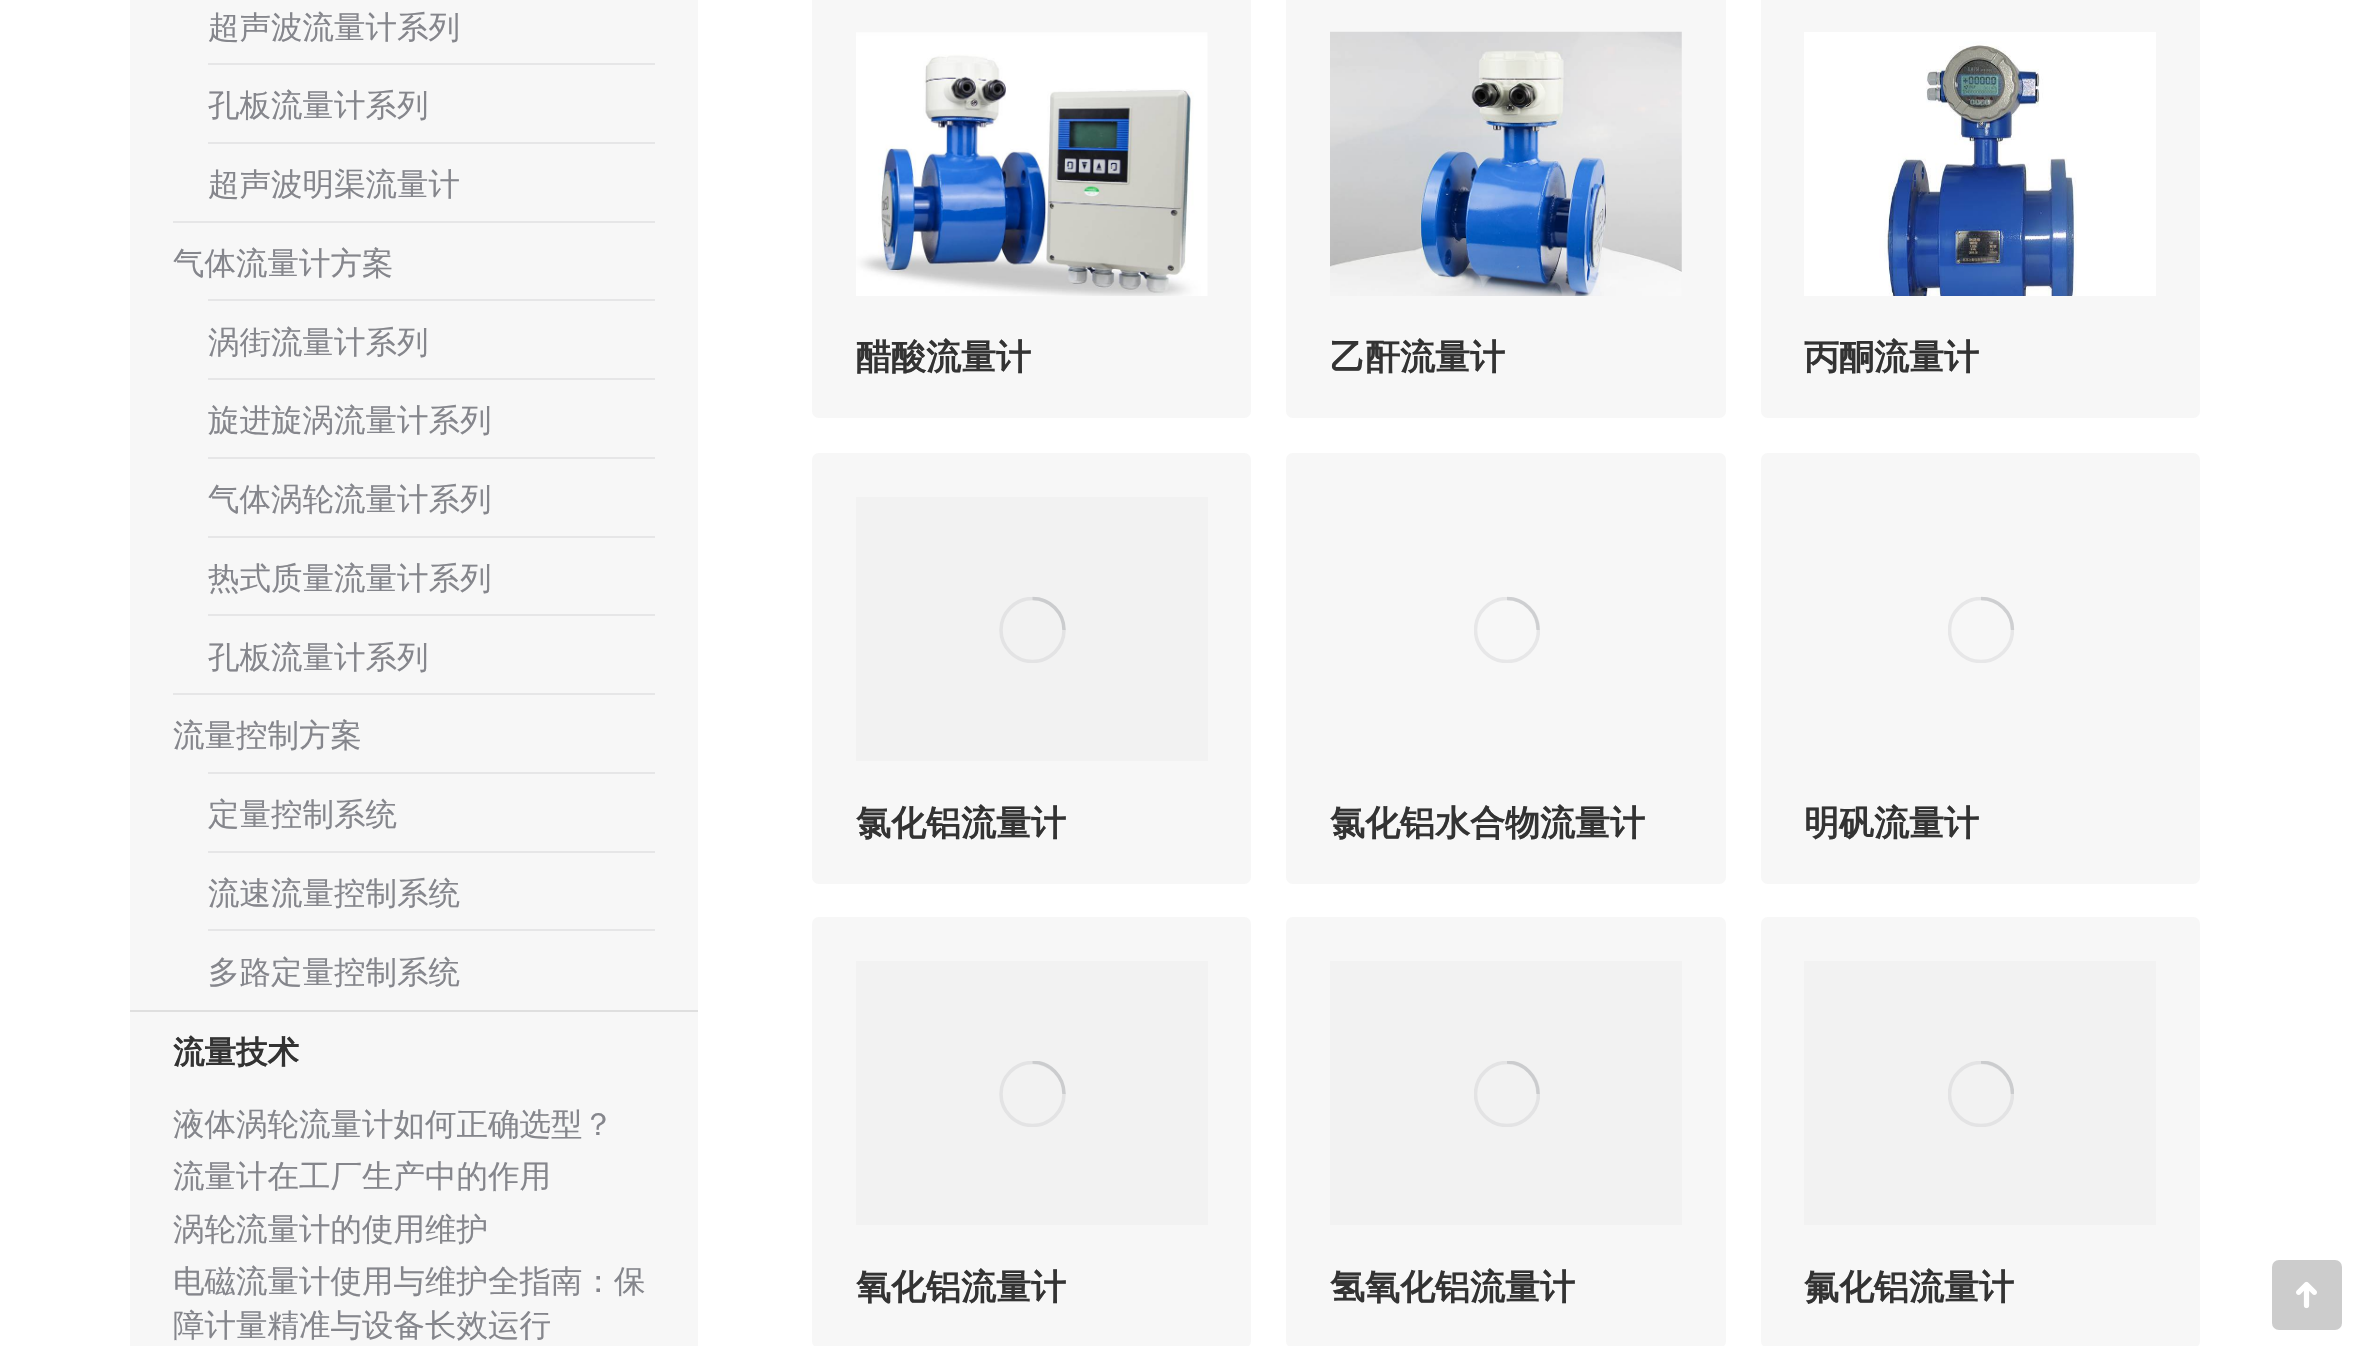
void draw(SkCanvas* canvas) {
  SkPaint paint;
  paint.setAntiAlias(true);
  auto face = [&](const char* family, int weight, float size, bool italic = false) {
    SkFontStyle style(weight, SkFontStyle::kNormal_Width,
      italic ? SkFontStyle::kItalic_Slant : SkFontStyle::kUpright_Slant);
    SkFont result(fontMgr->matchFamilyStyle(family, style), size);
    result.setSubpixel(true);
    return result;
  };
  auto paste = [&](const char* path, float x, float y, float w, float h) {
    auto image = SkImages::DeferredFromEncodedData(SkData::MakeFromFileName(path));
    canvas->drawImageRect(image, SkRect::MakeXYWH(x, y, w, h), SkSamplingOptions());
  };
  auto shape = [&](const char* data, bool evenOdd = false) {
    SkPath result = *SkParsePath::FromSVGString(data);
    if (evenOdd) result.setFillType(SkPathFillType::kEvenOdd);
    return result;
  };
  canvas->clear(0xffffffff);
  {
    const struct { float x, y, w, h; SkColor color; } items[] = {
      {130, 0, 568, 1346, 0xfff7f7f7},
      {208, 63, 447, 2, 0xffe6e6e7},
      {208, 142, 447, 2, 0xffe6e6e7},
      {173, 221, 482, 2, 0xffe6e6e7},
      {208, 299, 447, 2, 0xffe6e6e7},
      {208, 378, 447, 2, 0xffe6e6e7},
      {208, 457, 447, 2, 0xffe6e6e7},
      {208, 536, 447, 2, 0xffe6e6e7},
      {208, 614, 447, 2, 0xffe6e6e7},
      {173, 693, 482, 2, 0xffe6e6e7},
      {208, 772, 447, 2, 0xffe6e6e7},
      {208, 851, 447, 2, 0xffe6e6e7},
      {208, 929, 447, 2, 0xffe6e6e7},
      {130, 1010, 568, 2, 0xffdfdfdf},
    };
    for (auto [x, y, w, h, color] : items) {
      paint.setColor(color);
      canvas->drawRect(SkRect::MakeXYWH(x, y, w, h), paint);
    }
  }
  paint.setColor(0xfff7f7f7);
  canvas->drawRoundRect(SkRect::MakeXYWH(812, -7, 439, 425), 7, 7, paint);
  paste("img/1.png", 856, 32, 352, 264);
  canvas->drawRoundRect(SkRect::MakeXYWH(1286, -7, 440, 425), 7, 7, paint);
  paste("img/2.png", 1330, 31, 352, 265);
  canvas->drawRoundRect(SkRect::MakeXYWH(1761, -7, 439, 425), 7, 7, paint);
  paste("img/3.png", 1804, 32, 352, 264);
  canvas->drawRoundRect(SkRect::MakeXYWH(812, 453, 439, 431), 7, 7, paint);
  paint.setColor(0xfff2f2f2);
  canvas->drawRect(SkRect::MakeXYWH(856, 497, 352, 264), paint);
  canvas->save();
  canvas->clipRect(SkRect::MakeXYWH(999, 597, 67, 66));
  paint.setStroke(true);
  paint.setStrokeWidth(3.5f);
  paint.setColor(0xffe3e3e4);
  canvas->drawCircle(1032.5f, 630, 31.5f, paint);
  canvas->restore();
  paint.setColor(0x4085868c);
  canvas->drawPath(shape("M1064 630C1064 612.5 1050 598.5 1032.5 598.5"), paint);
  paint.setStroke(false);
  paint.setColor(0xfff7f7f7);
  canvas->drawRoundRect(SkRect::MakeXYWH(1286, 453, 440, 431), 7, 7, paint);
  canvas->save();
  canvas->clipRect(SkRect::MakeXYWH(1474, 597, 66, 66));
  paint.setStroke(true);
  paint.setColor(0xffe7e7e8);
  canvas->drawCircle(1507, 630, 31.5f, paint);
  canvas->restore();
  paint.setColor(0x4085868c);
  canvas->drawPath(shape("M1538 630C1538 612.5 1524 598.5 1507 598.5"), paint);
  paint.setStroke(false);
  paint.setColor(0xfff7f7f7);
  canvas->drawRoundRect(SkRect::MakeXYWH(1761, 453, 439, 431), 7, 7, paint);
  canvas->save();
  canvas->clipRect(SkRect::MakeXYWH(1948, 597, 66, 66));
  paint.setStroke(true);
  paint.setColor(0xffe7e7e8);
  canvas->drawCircle(1981, 630, 31.5f, paint);
  canvas->restore();
  paint.setColor(0x4085868c);
  canvas->drawPath(shape("M2012.5 630C2012.5 612.5 1998.5 598.5 1981 598.5"), paint);
  paint.setStroke(false);
  paint.setColor(0xfff7f7f7);
  canvas->drawRoundRect(SkRect::MakeXYWH(812, 917, 439, 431), 7, 7, paint);
  paint.setColor(0xfff2f2f2);
  canvas->drawRect(SkRect::MakeXYWH(856, 961, 352, 264), paint);
  canvas->save();
  canvas->clipRect(SkRect::MakeXYWH(999, 1061, 67, 66));
  paint.setStroke(true);
  paint.setColor(0xffe3e3e4);
  canvas->drawCircle(1032.5f, 1094, 31.5f, paint);
  paint.setColor(0x4085868c);
  canvas->drawPath(shape("M1064 1094C1064 1076.5 1050 1062 1032.5 1062"), paint);
  canvas->restore();
  paint.setStroke(false);
  paint.setColor(0xfff7f7f7);
  canvas->drawRoundRect(SkRect::MakeXYWH(1286, 917, 440, 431), 7, 7, paint);
  paint.setColor(0xfff2f2f2);
  canvas->drawRect(SkRect::MakeXYWH(1330, 961, 352, 264), paint);
  canvas->save();
  canvas->clipRect(SkRect::MakeXYWH(1474, 1061, 66, 66));
  paint.setStroke(true);
  paint.setColor(0xffe3e3e4);
  canvas->drawCircle(1507, 1094, 31.5f, paint);
  paint.setColor(0x4085868c);
  canvas->drawPath(shape("M1538 1094C1538 1076.5 1524 1062 1507 1062"), paint);
  canvas->restore();
  paint.setStroke(false);
  paint.setColor(0xfff7f7f7);
  canvas->drawRoundRect(SkRect::MakeXYWH(1761, 917, 439, 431), 7, 7, paint);
  paint.setColor(0xfff2f2f2);
  canvas->drawRect(SkRect::MakeXYWH(1804, 961, 352, 264), paint);
  canvas->save();
  canvas->clipRect(SkRect::MakeXYWH(1948, 1061, 66, 66));
  paint.setStroke(true);
  paint.setColor(0xffe3e3e4);
  canvas->drawCircle(1981, 1094, 31.5f, paint);
  paint.setColor(0x4085868c);
  canvas->drawPath(shape("M2012.5 1094C2012.5 1076.5 1998.5 1062 1981 1062"), paint);
  canvas->restore();
  paint.setStroke(false);
  paint.setColor(0xffcccccc);
  canvas->drawRoundRect(SkRect::MakeXYWH(2272, 1260, 70, 70), 7, 7, paint);
  paste("img/4.png", 2296, 1281, 21, 28);
  auto f0 = face("WenQuanYi Zen Hei", 500, 31.5f);
  paint.setColor(0xff85868c);
  {
    const struct { const char* s; float x, y; } items[] = {
      {"超声波流量计系列", 208, 38},
      {"孔板流量计系列", 208, 116},
      {"超声波明渠流量计", 208, 195},
      {"气体流量计方案", 173, 274},
      {"涡街流量计系列", 208, 353},
      {"旋进旋涡流量计系列", 208, 431},
      {"气体涡轮流量计系列", 208, 510},
      {"热式质量流量计系列", 208, 589},
      {"孔板流量计系列", 208, 668},
      {"流量控制方案", 173, 746},
      {"定量控制系统", 208, 825},
      {"流速流量控制系统", 208, 904},
      {"多路定量控制系统", 208, 983},
    };
    for (auto [s, x, y] : items) {
      canvas->drawString(s, x, y, f0, paint);
    }
  }
  auto f1 = face("WenQuanYi Zen Hei", 700, 31.5f);
  paint.setColor(0xff333333);
  canvas->drawString("流量技术", 173, 1063, f1, paint);
  paint.setColor(0xff85868c);
  {
    const struct { const char* s; float x, y; } items[] = {
      {"液体涡轮流量计如何正确选型？", 173, 1135},
      {"流量计在工厂生产中的作用", 173, 1187},
      {"涡轮流量计的使用维护", 173, 1240},
      {"电磁流量计使用与维护全指南：保", 173, 1292},
      {"障计量精准与设备长效运行", 173, 1336},
    };
    for (auto [s, x, y] : items) {
      canvas->drawString(s, x, y, f0, paint);
    }
  }
  auto f2 = face("WenQuanYi Zen Hei", 700, 35);
  paint.setColor(0xff333333);
  {
    const struct { const char* s; float x, y; } items[] = {
      {"醋酸流量计", 856, 369},
      {"乙酐流量计", 1330, 369},
      {"丙酮流量计", 1804, 369},
      {"氯化铝流量计", 856, 835},
      {"氯化铝水合物流量计", 1330, 835},
      {"明矾流量计", 1804, 835},
      {"氧化铝流量计", 856, 1299},
      {"氢氧化铝流量计", 1330, 1299},
      {"氟化铝流量计", 1804, 1299},
    };
    for (auto [s, x, y] : items) {
      canvas->drawString(s, x, y, f2, paint);
    }
  }
}
